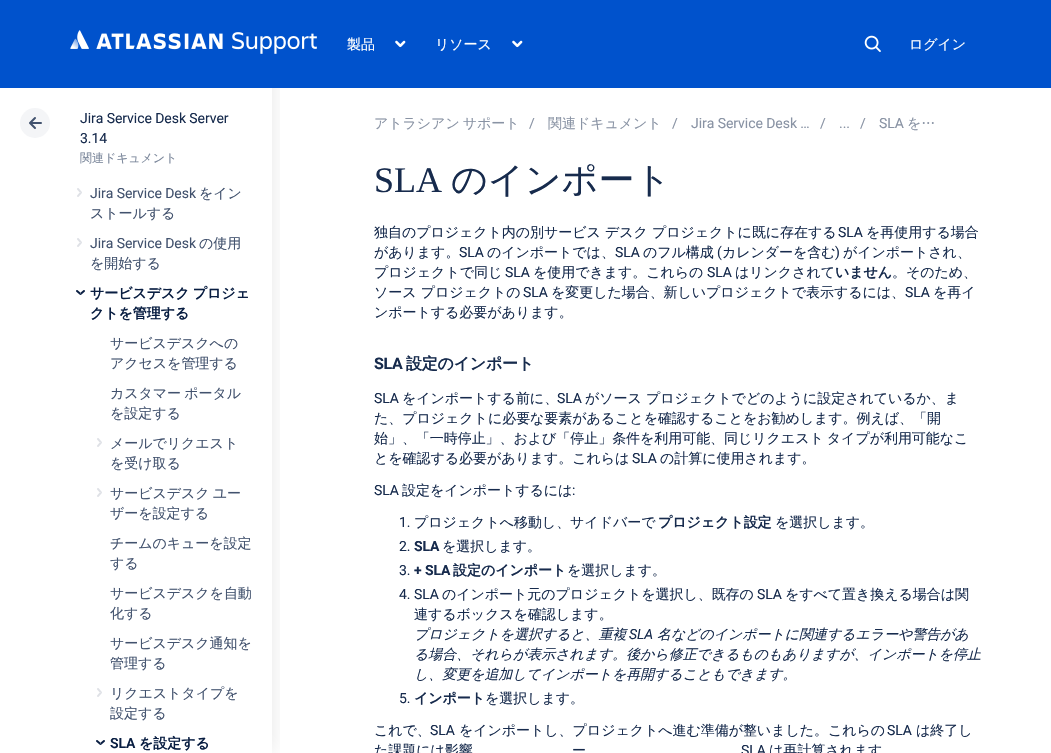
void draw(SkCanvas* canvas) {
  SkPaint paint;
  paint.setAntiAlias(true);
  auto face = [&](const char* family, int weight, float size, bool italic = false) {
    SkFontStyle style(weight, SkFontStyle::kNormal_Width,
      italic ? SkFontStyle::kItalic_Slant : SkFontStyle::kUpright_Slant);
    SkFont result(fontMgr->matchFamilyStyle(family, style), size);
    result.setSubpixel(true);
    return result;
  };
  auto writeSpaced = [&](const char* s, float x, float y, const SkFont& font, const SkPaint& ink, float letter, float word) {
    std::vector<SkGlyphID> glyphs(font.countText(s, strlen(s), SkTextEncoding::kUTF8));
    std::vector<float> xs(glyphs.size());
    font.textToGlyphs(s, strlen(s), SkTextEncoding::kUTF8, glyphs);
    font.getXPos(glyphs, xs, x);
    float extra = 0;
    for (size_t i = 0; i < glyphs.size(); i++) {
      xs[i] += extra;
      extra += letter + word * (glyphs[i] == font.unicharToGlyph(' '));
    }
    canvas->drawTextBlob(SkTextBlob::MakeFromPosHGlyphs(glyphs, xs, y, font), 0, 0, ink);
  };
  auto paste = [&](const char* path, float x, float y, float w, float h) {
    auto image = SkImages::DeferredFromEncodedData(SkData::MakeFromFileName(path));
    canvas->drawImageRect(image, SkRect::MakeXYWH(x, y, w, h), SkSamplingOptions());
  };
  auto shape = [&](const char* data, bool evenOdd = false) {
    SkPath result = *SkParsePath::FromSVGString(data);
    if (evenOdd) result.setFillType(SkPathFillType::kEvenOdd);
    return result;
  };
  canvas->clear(0xffffffff);
  canvas->save();
  canvas->clipRect(SkRect::MakeXYWH(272, 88, 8, 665));
  paint.setColor(0x1a161616);
  paint.setMaskFilter(SkMaskFilter::MakeBlur(kNormal_SkBlurStyle, 10));
  canvas->drawRect(SkRect::MakeXYWH(0, 0, 272, 753), paint);
  paint.setMaskFilter(nullptr);
  canvas->restore();
  paint.setColor(0xff0052cc);
  canvas->drawRect(SkRect::MakeXYWH(0, 0, 1051, 88), paint);
  paste("img/1.png", 70, 30, 247, 24);
  paste("img/2.png", 395, 40, 11, 8);
  paste("img/2.png", 512, 40, 11, 8);
  paste("img/3.png", 864, 35, 17, 17);
  paint.setColor(0xfff4f5f7);
  canvas->drawCircle(35, 123, 15, paint);
  paint.setColor(0xff42526e);
  canvas->drawRoundRect(SkRect::MakeXYWH(30, 122, 12, 2), 1, 1, paint);
  paint.setStroke(true);
  paint.setStrokeWidth(2);
  paint.setStrokeCap(SkPaint::kRound_Cap);
  paint.setStrokeJoin(SkPaint::kRound_Join);
  canvas->drawPath(shape("M35 128L30 123L35 118"), paint);
  paste("img/4.png", 77, 188, 5, 9);
  paste("img/4.png", 77, 238, 5, 9);
  paste("img/5.png", 76, 290, 9, 5);
  paste("img/4.png", 97, 438, 5, 9);
  paste("img/4.png", 97, 488, 5, 9);
  paste("img/4.png", 97, 688, 5, 9);
  paste("img/5.png", 96, 740, 9, 5);
  auto f0 = face("WenQuanYi Zen Hei", 500, 14);
  paint.setStroke(false);
  paint.setColor(0xffffffff);
  {
    const struct { const char* s; float x, y; } items[] = {
      {"製品", 347, 49},
      {"リソース", 435, 49},
      {"ログイン", 909, 49},
    };
    for (auto [s, x, y] : items) {
      writeSpaced(s, x, y, f0, paint, -0.05f, 0);
    }
  }
  auto f1 = face("Roboto", 400, 14);
  paint.setColor(0xff172b4d);
  writeSpaced("Jira Service Desk Server", 80, 123, f1, paint, -0.05f, 0);
  writeSpaced("3.14", 80, 143, f1, paint, -0.05f, 0);
  auto f2 = face("WenQuanYi Zen Hei", 500, 12);
  paint.setColor(0xff7a869a);
  writeSpaced("関連ドキュメント", 80, 162, f2, paint, -0.05f, 0);
  paint.setColor(0xff42526e);
  writeSpaced("Jira Service Desk", 90, 198, f1, paint, -0.05f, 0);
  writeSpaced("をイン", 199, 198, f0, paint, -0.05f, 0);
  writeSpaced("ストールする", 90, 218, f0, paint, -0.05f, 0);
  writeSpaced("Jira Service Desk", 90, 248, f1, paint, -0.05f, 0);
  writeSpaced("の使用", 199, 248, f0, paint, -0.05f, 0);
  writeSpaced("を開始する", 90, 268, f0, paint, -0.05f, 0);
  auto f3 = face("WenQuanYi Zen Hei", 700, 14);
  paint.setColor(0xff091e42);
  writeSpaced("サービスデスク プロジェ", 90, 298, f3, paint, -0.05f, -1);
  writeSpaced("クトを管理する", 90, 318, f3, paint, -0.05f, 0);
  paint.setColor(0xff42526e);
  writeSpaced("サービスデスクへの", 110, 348, f0, paint, -0.05f, 0);
  writeSpaced("アクセスを管理する", 110, 368, f0, paint, -0.05f, 0);
  writeSpaced("カスタマー ポータル", 110, 398, f0, paint, -0.05f, -1);
  {
    const struct { const char* s; float x, y; } items[] = {
      {"を設定する", 110, 418},
      {"メールでリクエスト", 110, 448},
      {"を受け取る", 110, 468},
    };
    for (auto [s, x, y] : items) {
      writeSpaced(s, x, y, f0, paint, -0.05f, 0);
    }
  }
  writeSpaced("サービスデスク ユー", 110, 498, f0, paint, -0.05f, -1);
  {
    const struct { const char* s; float x, y; } items[] = {
      {"ザーを設定する", 110, 518},
      {"チームのキューを設定", 110, 548},
      {"する", 110, 568},
      {"サービスデスクを自動", 110, 598},
      {"化する", 110, 618},
      {"サービスデスク通知を", 110, 648},
      {"管理する", 110, 668},
      {"リクエストタイプを", 110, 698},
      {"設定する", 110, 718},
    };
    for (auto [s, x, y] : items) {
      writeSpaced(s, x, y, f0, paint, -0.05f, 0);
    }
  }
  auto f4 = face("Roboto", 600, 14);
  paint.setColor(0xff091e42);
  writeSpaced("SLA", 110, 748, f4, paint, -0.05f, 0);
  writeSpaced("を設定する", 139, 748, f3, paint, -0.05f, 0);
  paint.setColor(0xff8993a4);
  writeSpaced("アトラシアン サポート", 374, 128, f0, paint, -0.05f, -1);
  writeSpaced("/", 529, 128, f1, paint, -0.05f, 0);
  writeSpaced("関連ドキュメント", 548, 128, f0, paint, -0.05f, 0);
  {
    const struct { const char* s; float x, y; } items[] = {
      {"/", 672, 128},
      {"Jira Service Desk …", 691, 128},
      {"/", 820, 128},
      {"...", 839, 128},
      {"/", 860, 128},
      {"SLA", 879, 128},
    };
    for (auto [s, x, y] : items) {
      writeSpaced(s, x, y, f1, paint, -0.05f, 0);
    }
  }
  writeSpaced("を…", 907, 128, f0, paint, -0.05f, 0);
  auto f5 = face("Liberation Serif", 400, 36);
  paint.setColor(0xff172b4d);
  canvas->drawString("SLA", 374, 192, f5, paint);
  auto f6 = face("WenQuanYi Zen Hei", 500, 36);
  canvas->drawString("のインポート", 451, 192, f6, paint);
  writeSpaced("独自のプロジェクト内の別サービス デスク プロジェクトに既に存在する", 374, 237, f0, paint, -0.05f, 0);
  writeSpaced("SLA", 838, 237, f1, paint, -0.05f, 0);
  writeSpaced("を再使用する場合", 866, 237, f0, paint, -0.05f, 0);
  writeSpaced("があります。", 374, 257, f0, paint, -0.05f, 0);
  writeSpaced("SLA", 459, 257, f1, paint, -0.05f, 0);
  writeSpaced("のインポートでは、", 487, 257, f0, paint, -0.05f, 0);
  writeSpaced("SLA", 615, 257, f1, paint, -0.05f, 0);
  writeSpaced("のフル構成", 643, 257, f0, paint, -0.05f, 0);
  writeSpaced("(", 717, 257, f1, paint, -0.05f, 0);
  writeSpaced("カレンダーを含む", 722, 257, f0, paint, -0.05f, 0);
  writeSpaced(")", 835, 257, f1, paint, -0.05f, 0);
  writeSpaced("がインポートされ、", 843, 257, f0, paint, -0.05f, 0);
  writeSpaced("プロジェクトで同じ", 374, 277, f0, paint, -0.05f, 0);
  writeSpaced("SLA", 505, 277, f1, paint, -0.05f, 0);
  writeSpaced("を使用できます。これらの", 533, 277, f0, paint, -0.05f, 0);
  writeSpaced("SLA", 707, 277, f1, paint, -0.05f, 0);
  writeSpaced("はリンクされて", 735, 277, f0, paint, -0.05f, 0);
  writeSpaced("いません", 835, 277, f3, paint, -0.05f, 0);
  writeSpaced("。そのため、", 892, 277, f0, paint, -0.05f, 0);
  writeSpaced("ソース プロジェクトの", 374, 297, f0, paint, -0.05f, 0);
  writeSpaced("SLA", 523, 297, f1, paint, -0.05f, 0);
  writeSpaced("を変更した場合、新しいプロジェクトで表示するには、", 551, 297, f0, paint, -0.05f, 0);
  writeSpaced("SLA", 905, 297, f1, paint, -0.05f, 0);
  writeSpaced("を再イ", 933, 297, f0, paint, -0.05f, 0);
  writeSpaced("ンポートする必要があります。", 374, 317, f0, paint, -0.05f, 0);
  auto f7 = face("Roboto", 700, 16);
  writeSpaced("SLA", 374, 369, f7, paint, -0.25f, 0);
  auto f8 = face("WenQuanYi Zen Hei", 700, 16);
  writeSpaced("設定のインポート", 406, 369, f8, paint, -0.25f, 0);
  writeSpaced("SLA", 374, 403, f1, paint, -0.05f, 0);
  writeSpaced("をインポートする前に、", 402, 403, f0, paint, -0.05f, 0);
  writeSpaced("SLA", 557, 403, f1, paint, -0.05f, 0);
  writeSpaced("がソース プロジェクトでどのように設定されているか、ま", 585, 403, f0, paint, -0.05f, 0);
  writeSpaced("た、プロジェクトに必要な要素があることを確認することをお勧めします。例えば、「開", 374, 423, f0, paint, -0.05f, 0);
  writeSpaced("始」、「一時停止」、および「停止」条件を利用可能、同じリクエスト タイプが利用可能なこ", 374, 443, f0, paint, -0.05f, -1);
  writeSpaced("とを確認する必要があります。これらは", 374, 463, f0, paint, -0.05f, 0);
  writeSpaced("SLA", 632, 463, f1, paint, -0.05f, 0);
  writeSpaced("の計算に使用されます。", 660, 463, f0, paint, -0.05f, 0);
  writeSpaced("SLA", 374, 495, f1, paint, -0.05f, 0);
  writeSpaced("設定をインポートするには", 402, 495, f0, paint, -0.05f, 0);
  writeSpaced(":", 572, 495, f1, paint, -0.05f, 0);
  writeSpaced("1.", 399, 527, f1, paint, -0.05f, 0);
  writeSpaced("プロジェクトへ移動し、サイドバーで", 414, 527, f0, paint, -0.05f, 0);
  writeSpaced("プロジェクト設定", 658, 527, f3, paint, -0.05f, 0);
  writeSpaced("を選択します。", 775, 527, f0, paint, -0.05f, 0);
  writeSpaced("2.", 399, 551, f1, paint, -0.05f, 0);
  auto f9 = face("Roboto", 700, 14);
  writeSpaced("SLA", 414, 551, f9, paint, -0.05f, 0);
  writeSpaced("を選択します。", 442, 551, f0, paint, -0.05f, 0);
  writeSpaced("3.", 399, 575, f1, paint, -0.05f, 0);
  writeSpaced("+ SLA", 414, 575, f9, paint, -0.05f, 0);
  writeSpaced("設定のインポート", 453, 575, f3, paint, -0.05f, 0);
  writeSpaced("を選択します。", 567, 575, f0, paint, -0.05f, 0);
  writeSpaced("4. SLA", 399, 599, f1, paint, -0.05f, 0);
  writeSpaced("のインポート元のプロジェクトを選択し、既存の", 442, 599, f0, paint, -0.05f, 0);
  writeSpaced("SLA", 757, 599, f1, paint, -0.05f, 0);
  writeSpaced("をすべて置き換える場合は関", 785, 599, f0, paint, -0.05f, 0);
  writeSpaced("連するボックスを確認します。", 414, 619, f0, paint, -0.05f, 0);
  auto f10 = face("WenQuanYi Zen Hei", 500, 14, true);
  writeSpaced("プロジェクトを選択すると、重複", 414, 639, f10, paint, -0.05f, 0);
  auto f11 = face("Roboto", 400, 14, true);
  writeSpaced("SLA", 629, 639, f11, paint, -0.05f, 0);
  {
    const struct { const char* s; float x, y; } items[] = {
      {"名などのインポートに関連するエラーや警告があ", 657, 639},
      {"る場合、それらが表示されます。後から修正できるものもありますが、インポートを停止", 414, 659},
      {"し、変更を追加してインポートを再開することもできます。", 414, 679},
    };
    for (auto [s, x, y] : items) {
      writeSpaced(s, x, y, f10, paint, -0.05f, 0);
    }
  }
  writeSpaced("5.", 399, 703, f1, paint, -0.05f, 0);
  writeSpaced("インポート", 414, 703, f3, paint, -0.05f, 0);
  writeSpaced("を選択します。", 485, 703, f0, paint, -0.05f, 0);
  writeSpaced("これで、", 374, 735, f0, paint, -0.05f, 0);
  writeSpaced("SLA", 430, 735, f1, paint, -0.05f, 0);
  writeSpaced("をインポートし、プロジェクトへ進む準備が整いました。これらの", 459, 735, f0, paint, -0.05f, 0);
  writeSpaced("SLA", 887, 735, f1, paint, -0.05f, 0);
  {
    const struct { const char* s; float x, y; } items[] = {
      {"は終了し", 916, 735},
      {"た課題には影響", 374, 755},
      {"ー", 572, 755},
    };
    for (auto [s, x, y] : items) {
      writeSpaced(s, x, y, f0, paint, -0.05f, 0);
    }
  }
  writeSpaced("SLA", 741, 755, f1, paint, -0.05f, 0);
  writeSpaced("は再計算されます", 769, 755, f0, paint, -0.05f, 0);
}
